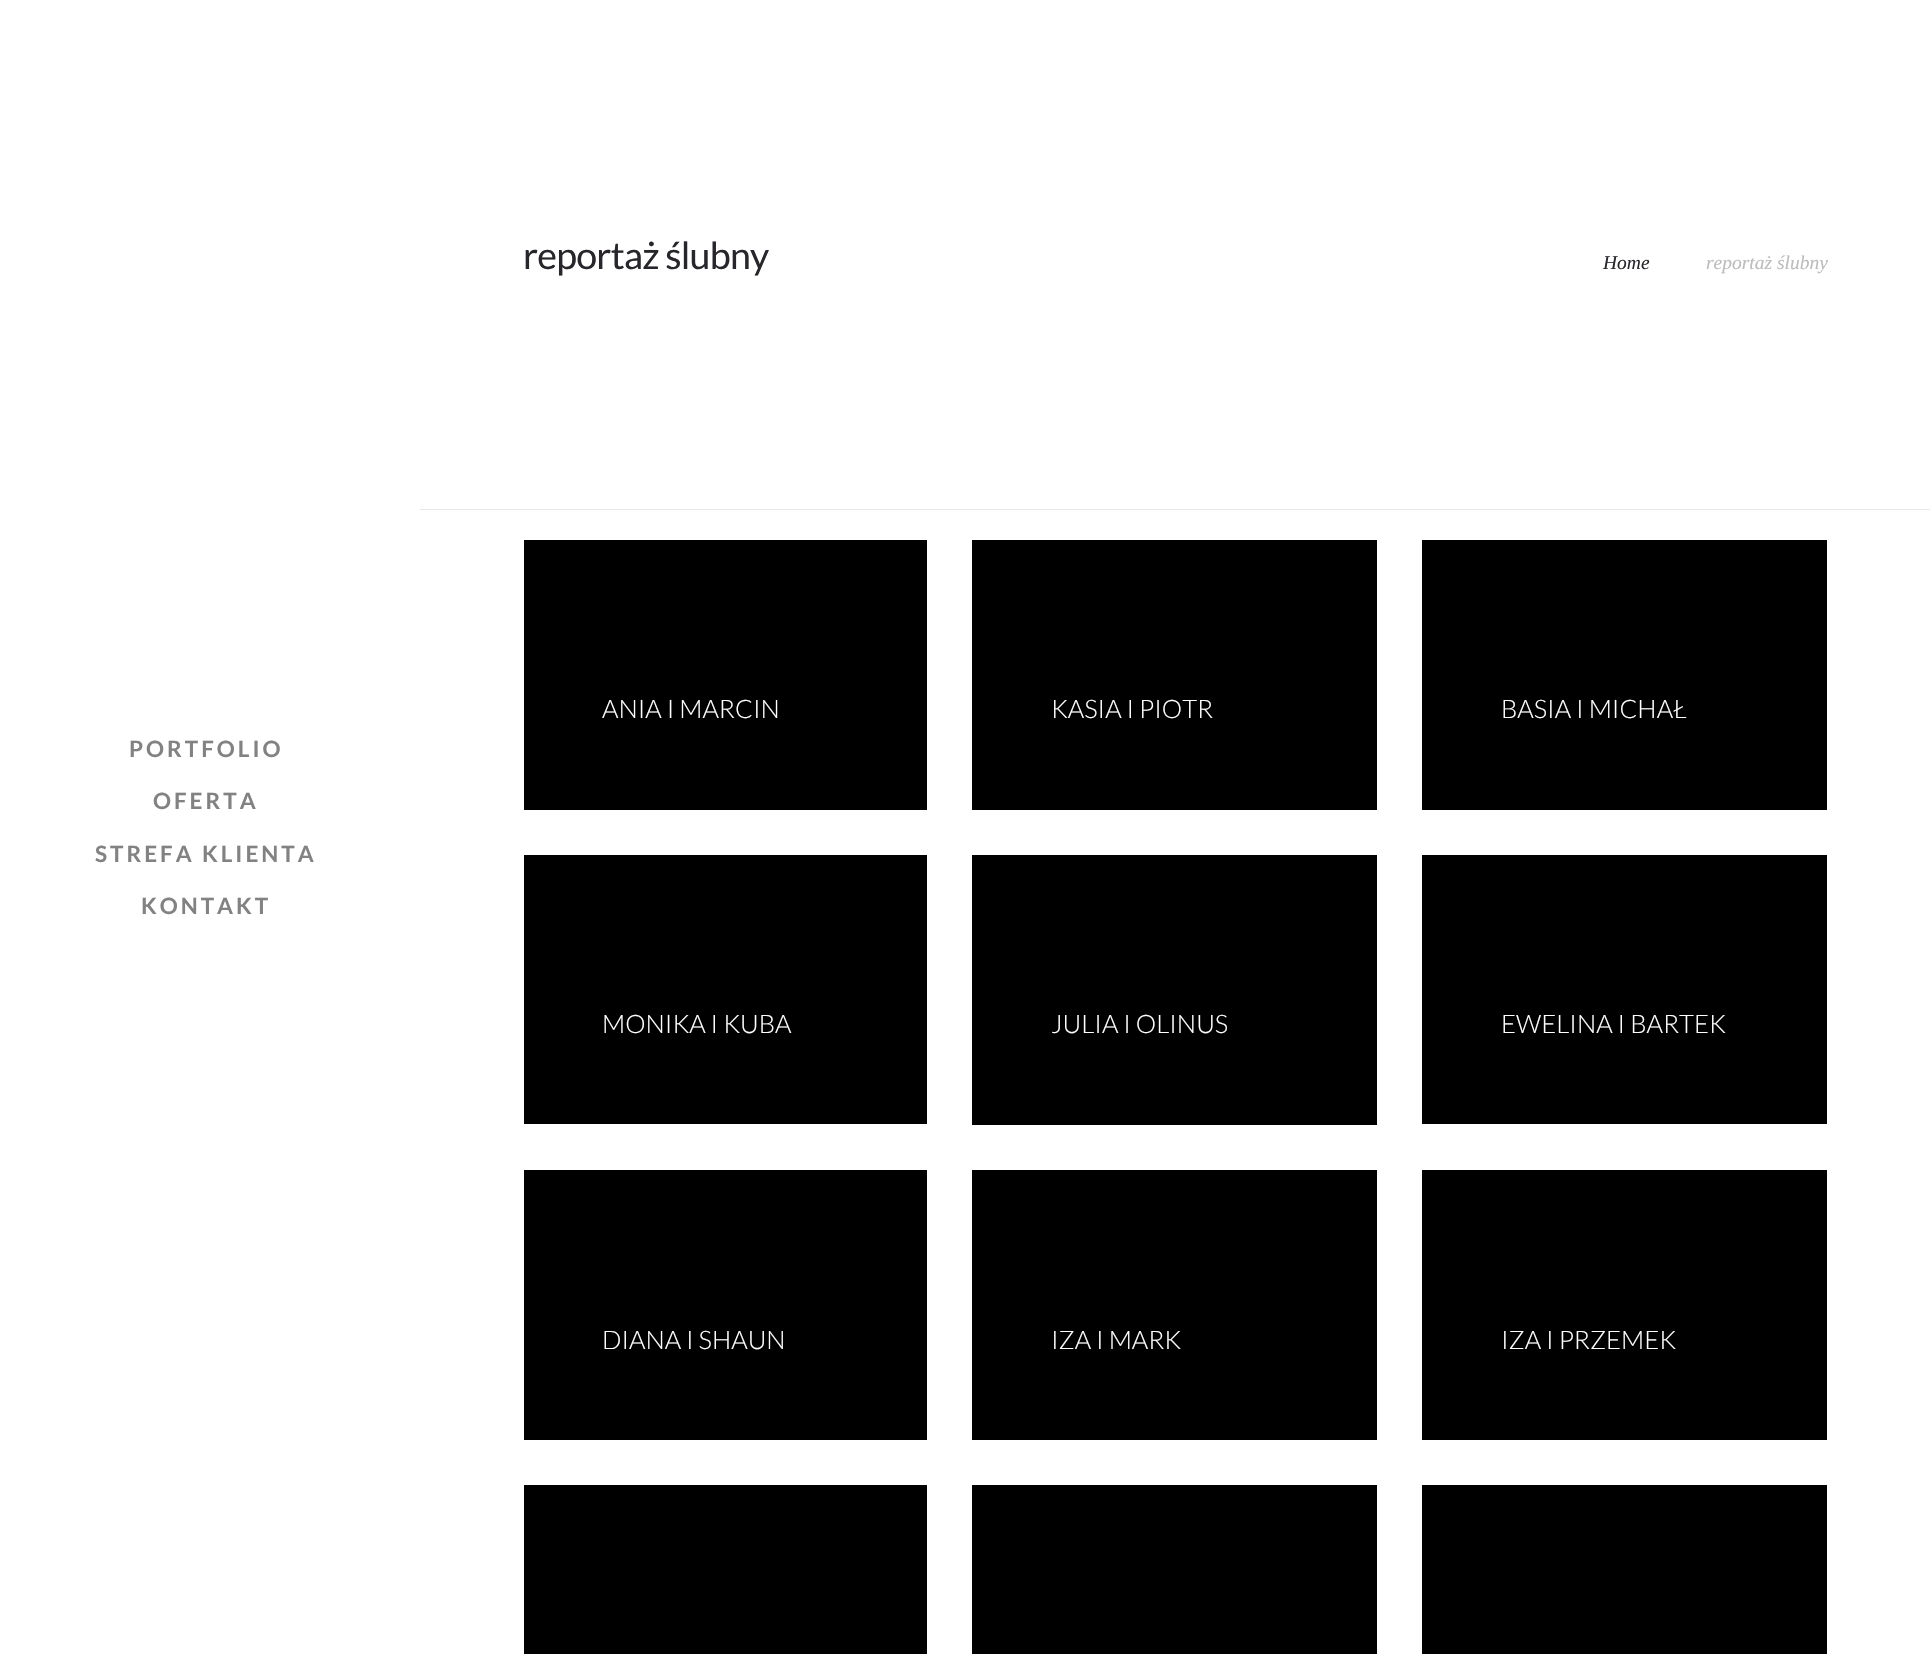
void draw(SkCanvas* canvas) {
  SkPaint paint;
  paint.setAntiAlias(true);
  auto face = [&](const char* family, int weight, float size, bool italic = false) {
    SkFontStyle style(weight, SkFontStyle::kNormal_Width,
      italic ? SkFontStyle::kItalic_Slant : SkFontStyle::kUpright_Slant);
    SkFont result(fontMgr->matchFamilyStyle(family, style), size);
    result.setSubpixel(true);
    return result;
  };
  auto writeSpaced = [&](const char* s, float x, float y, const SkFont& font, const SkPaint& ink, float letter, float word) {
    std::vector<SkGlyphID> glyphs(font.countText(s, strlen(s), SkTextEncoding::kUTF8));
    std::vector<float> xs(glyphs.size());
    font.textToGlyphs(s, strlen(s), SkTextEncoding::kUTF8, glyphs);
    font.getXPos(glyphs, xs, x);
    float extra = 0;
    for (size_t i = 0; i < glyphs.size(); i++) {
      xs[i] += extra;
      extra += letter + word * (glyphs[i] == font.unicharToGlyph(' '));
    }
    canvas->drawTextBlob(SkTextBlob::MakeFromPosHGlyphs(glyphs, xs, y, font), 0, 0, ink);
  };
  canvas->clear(0xffffffff);
  {
    const struct { float x, y, w, h; SkColor color; } items[] = {
      {420, 509, 1510, 1, 0xffe8e8e8},
      {524, 540, 403, 270, 0xff000000},
      {972, 540, 405, 270, 0xff000000},
      {1422, 540, 405, 270, 0xff000000},
      {524, 855, 403, 269, 0xff000000},
      {972, 855, 405, 270, 0xff000000},
      {1422, 855, 405, 269, 0xff000000},
      {524, 1170, 403, 270, 0xff000000},
      {972, 1170, 405, 270, 0xff000000},
      {1422, 1170, 405, 270, 0xff000000},
      {524, 1485, 403, 169, 0xff000000},
      {972, 1485, 405, 169, 0xff000000},
      {1422, 1485, 405, 169, 0xff000000},
    };
    for (auto [x, y, w, h, color] : items) {
      paint.setColor(color);
      canvas->drawRect(SkRect::MakeXYWH(x, y, w, h), paint);
    }
  }
  auto f0 = face("Lato", 700, 22.5f);
  paint.setColor(0xff828282);
  {
    const struct { const char* s; float x, y; } items[] = {
      {"PORTFOLIO", 129, 757},
      {"OFERTA", 153, 809},
      {"STREFA KLIENTA", 95, 862},
      {"KONTAKT", 141, 914},
    };
    for (auto [s, x, y] : items) {
      writeSpaced(s, x, y, f0, paint, 3, 0);
    }
  }
  auto f1 = face("Lato", 400, 37.5f);
  paint.setColor(0xff28262b);
  writeSpaced("reportaż ślubny", 523, 269, f1, paint, -0.75f, 0);
  auto f2 = face("Liberation Serif", 400, 19.5f, true);
  canvas->drawString("Home", 1603, 269, f2, paint);
  paint.setColor(0xffbcbcbc);
  canvas->drawString("reportaż ślubny", 1706, 269, f2, paint);
  auto f3 = face("Lato", 300, 25.5f);
  paint.setColor(0xffffffff);
  {
    const struct { const char* s; float x, y; } items[] = {
      {"ANIA I MARCIN", 602, 718},
      {"KASIA I PIOTR", 1051, 718},
      {"BASIA I MICHAŁ", 1501, 718},
      {"MONIKA I KUBA", 602, 1033},
      {"JULIA I OLINUS", 1051, 1033},
      {"EWELINA I BARTEK", 1501, 1033},
      {"DIANA I SHAUN", 602, 1349},
      {"IZA I MARK", 1051, 1349},
      {"IZA I PRZEMEK", 1501, 1349},
    };
    for (auto [s, x, y] : items) {
      canvas->drawString(s, x, y, f3, paint);
    }
  }
}
